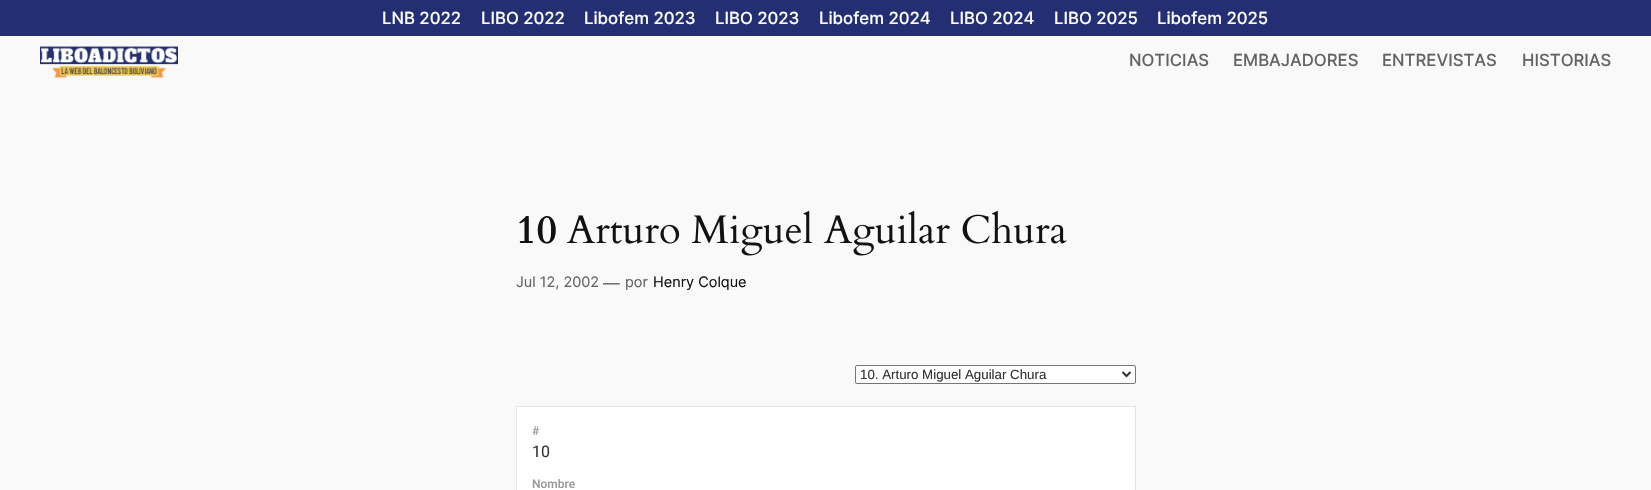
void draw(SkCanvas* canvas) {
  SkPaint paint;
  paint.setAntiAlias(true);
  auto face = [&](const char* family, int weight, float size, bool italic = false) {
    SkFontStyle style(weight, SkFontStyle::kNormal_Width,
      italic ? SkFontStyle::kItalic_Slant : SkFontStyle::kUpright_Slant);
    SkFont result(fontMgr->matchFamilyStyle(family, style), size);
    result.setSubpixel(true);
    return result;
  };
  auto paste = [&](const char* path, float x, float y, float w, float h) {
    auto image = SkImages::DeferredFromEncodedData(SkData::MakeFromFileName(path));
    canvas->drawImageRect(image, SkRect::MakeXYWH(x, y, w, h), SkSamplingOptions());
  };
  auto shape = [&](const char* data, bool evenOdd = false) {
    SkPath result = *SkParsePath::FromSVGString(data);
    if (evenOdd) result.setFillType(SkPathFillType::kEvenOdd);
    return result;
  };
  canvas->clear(0xfff9f9f9);
  paint.setColor(0xff242f73);
  canvas->drawRect(SkRect::MakeXYWH(0, 0, 1651, 36), paint);
  paste("img/1.png", 40, 46, 138, 32);
  paste("img/2.png", 566, 210, 501, 46);
  paint.setColor(0xffffffff);
  canvas->drawRoundRect(SkRect::MakeXYWH(855.5f, 365.5f, 280, 18), 1.5f, 1.5f, paint);
  paint.setStroke(true);
  paint.setStrokeWidth(1);
  paint.setColor(0xff767676);
  canvas->drawRoundRect(SkRect::MakeXYWH(855.5f, 365.5f, 280, 18), 1.5f, 1.5f, paint);
  paint.setStrokeWidth(2);
  paint.setColor(0xff333333);
  canvas->drawPath(shape("M1122.5 372L1126.5 376L1130.5 372"), paint);
  paint.setStroke(false);
  paint.setColor(0xffffffff);
  canvas->drawRect(SkRect::MakeXYWH(516.5f, 406.5f, 619, 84), paint);
  paint.setStroke(true);
  paint.setStrokeWidth(1);
  paint.setColor(0xffe5e5e5);
  canvas->drawRect(SkRect::MakeXYWH(516.5f, 406.5f, 619, 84), paint);
  auto f0 = face("Inter", 500, 16.75f);
  paint.setStroke(false);
  paint.setColor(0xffffffff);
  {
    const struct { const char* s; float x, y; } items[] = {
      {"LNB 2022", 382, 24},
      {"LIBO 2022", 481, 24},
      {"Libofem 2023", 584, 24},
      {"LIBO 2023", 715, 24},
      {"Libofem 2024", 819, 24},
      {"LIBO 2024", 950, 24},
      {"LIBO 2025", 1054, 24},
      {"Libofem 2025", 1157, 24},
    };
    for (auto [s, x, y] : items) {
      canvas->drawString(s, x, y, f0, paint);
    }
  }
  paint.setColor(0xff636363);
  {
    const struct { const char* s; float x, y; } items[] = {
      {"NOTICIAS", 1129, 66},
      {"EMBAJADORES", 1233, 66},
      {"ENTREVISTAS", 1382, 66},
      {"HISTORIAS", 1522, 66},
    };
    for (auto [s, x, y] : items) {
      canvas->drawString(s, x, y, f0, paint);
    }
  }
  auto f1 = face("Cardo", 700, 40);
  paint.setColor(0xff111111);
  canvas->drawString("10", 516, 243, f1, paint);
  auto f2 = face("Inter", 400, 14.5f);
  paint.setColor(0xff636363);
  canvas->drawString("Jul 12, 2002", 516, 287, f2, paint);
  auto f3 = face("Inter", 400, 16.75f);
  canvas->drawString("—", 603, 289, f3, paint);
  canvas->drawString("por", 625, 287, f2, paint);
  paint.setColor(0xff111111);
  canvas->drawString("Henry Colque", 653, 287, f2, paint);
  auto f4 = face("Liberation Sans", 400, 13.3f);
  paint.setColor(0xff333333);
  canvas->drawString("10. Arturo Miguel Aguilar Chura", 860, 379, f4, paint);
  auto f5 = face("Roboto", 500, 12);
  paint.setColor(0xff999999);
  canvas->drawString("#", 532, 435, f5, paint);
  auto f6 = face("Roboto", 400, 16);
  paint.setColor(0xff333333);
  canvas->drawString("10", 532, 457, f6, paint);
  paint.setColor(0xff999999);
  canvas->drawString("Nombre", 532, 488, f5, paint);
}
